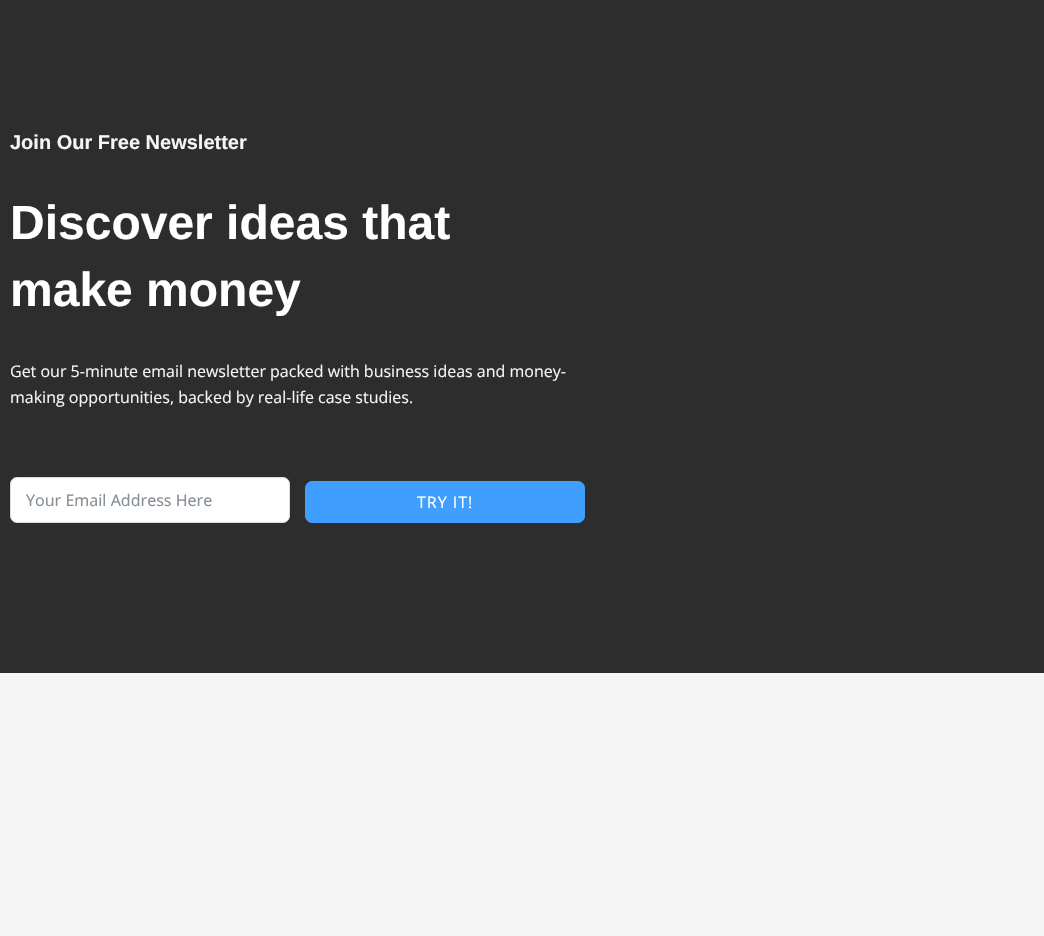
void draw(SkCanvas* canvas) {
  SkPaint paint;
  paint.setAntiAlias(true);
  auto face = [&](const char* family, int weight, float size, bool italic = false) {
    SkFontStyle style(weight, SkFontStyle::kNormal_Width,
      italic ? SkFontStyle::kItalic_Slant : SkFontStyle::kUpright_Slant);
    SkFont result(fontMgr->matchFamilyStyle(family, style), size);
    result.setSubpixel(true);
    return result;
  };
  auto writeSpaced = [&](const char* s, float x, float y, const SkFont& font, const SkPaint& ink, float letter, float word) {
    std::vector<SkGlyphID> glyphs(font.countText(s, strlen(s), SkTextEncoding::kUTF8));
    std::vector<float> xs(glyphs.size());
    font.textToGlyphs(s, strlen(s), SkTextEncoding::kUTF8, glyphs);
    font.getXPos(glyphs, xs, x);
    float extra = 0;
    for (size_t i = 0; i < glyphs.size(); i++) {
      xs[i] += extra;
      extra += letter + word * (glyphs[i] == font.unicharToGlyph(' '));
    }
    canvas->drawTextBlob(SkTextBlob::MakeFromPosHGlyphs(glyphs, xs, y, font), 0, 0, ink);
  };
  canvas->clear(0xfff5f5f5);
  paint.setColor(0xff2d2d2d);
  canvas->drawRect(SkRect::MakeXYWH(0, 0, 1044, 673), paint);
  paint.setColor(0xffffffff);
  canvas->drawRoundRect(SkRect::MakeXYWH(10.5f, 477.5f, 279, 45), 6.5f, 6.5f, paint);
  paint.setStroke(true);
  paint.setStrokeWidth(1);
  paint.setColor(0xffdadbdd);
  canvas->drawRoundRect(SkRect::MakeXYWH(10.5f, 477.5f, 279, 45), 6.5f, 6.5f, paint);
  paint.setStroke(false);
  paint.setColor(0xff409eff);
  canvas->drawRoundRect(SkRect::MakeXYWH(305.5f, 481.5f, 279, 41), 6.5f, 6.5f, paint);
  paint.setStroke(true);
  canvas->drawRoundRect(SkRect::MakeXYWH(305.5f, 481.5f, 279, 41), 6.5f, 6.5f, paint);
  auto f0 = face("Liberation Sans", 700, 20);
  paint.setStroke(false);
  paint.setColor(0xfff5f5f5);
  canvas->drawString("Join Our Free Newsletter", 10, 149, f0, paint);
  auto f1 = face("Liberation Sans", 700, 48);
  paint.setColor(0xffffffff);
  canvas->drawString("Discover ideas that", 10, 239, f1, paint);
  canvas->drawString("make money", 10, 306, f1, paint);
  auto f2 = face("Open Sans", 400, 16);
  paint.setColor(0xfff5f5f5);
  canvas->drawString("Get our 5-minute email newsletter packed with business ideas and money-", 10, 377, f2, paint);
  canvas->drawString("making opportunities, backed by real-life case studies.", 10, 403, f2, paint);
  auto f3 = face("Noto Sans", 400, 16);
  paint.setColor(0xff868e96);
  canvas->drawString("Your Email Address Here", 26, 506, f3, paint);
  paint.setColor(0xffffffff);
  writeSpaced("TRY IT!", 417, 508, f2, paint, 1, 0);
}
